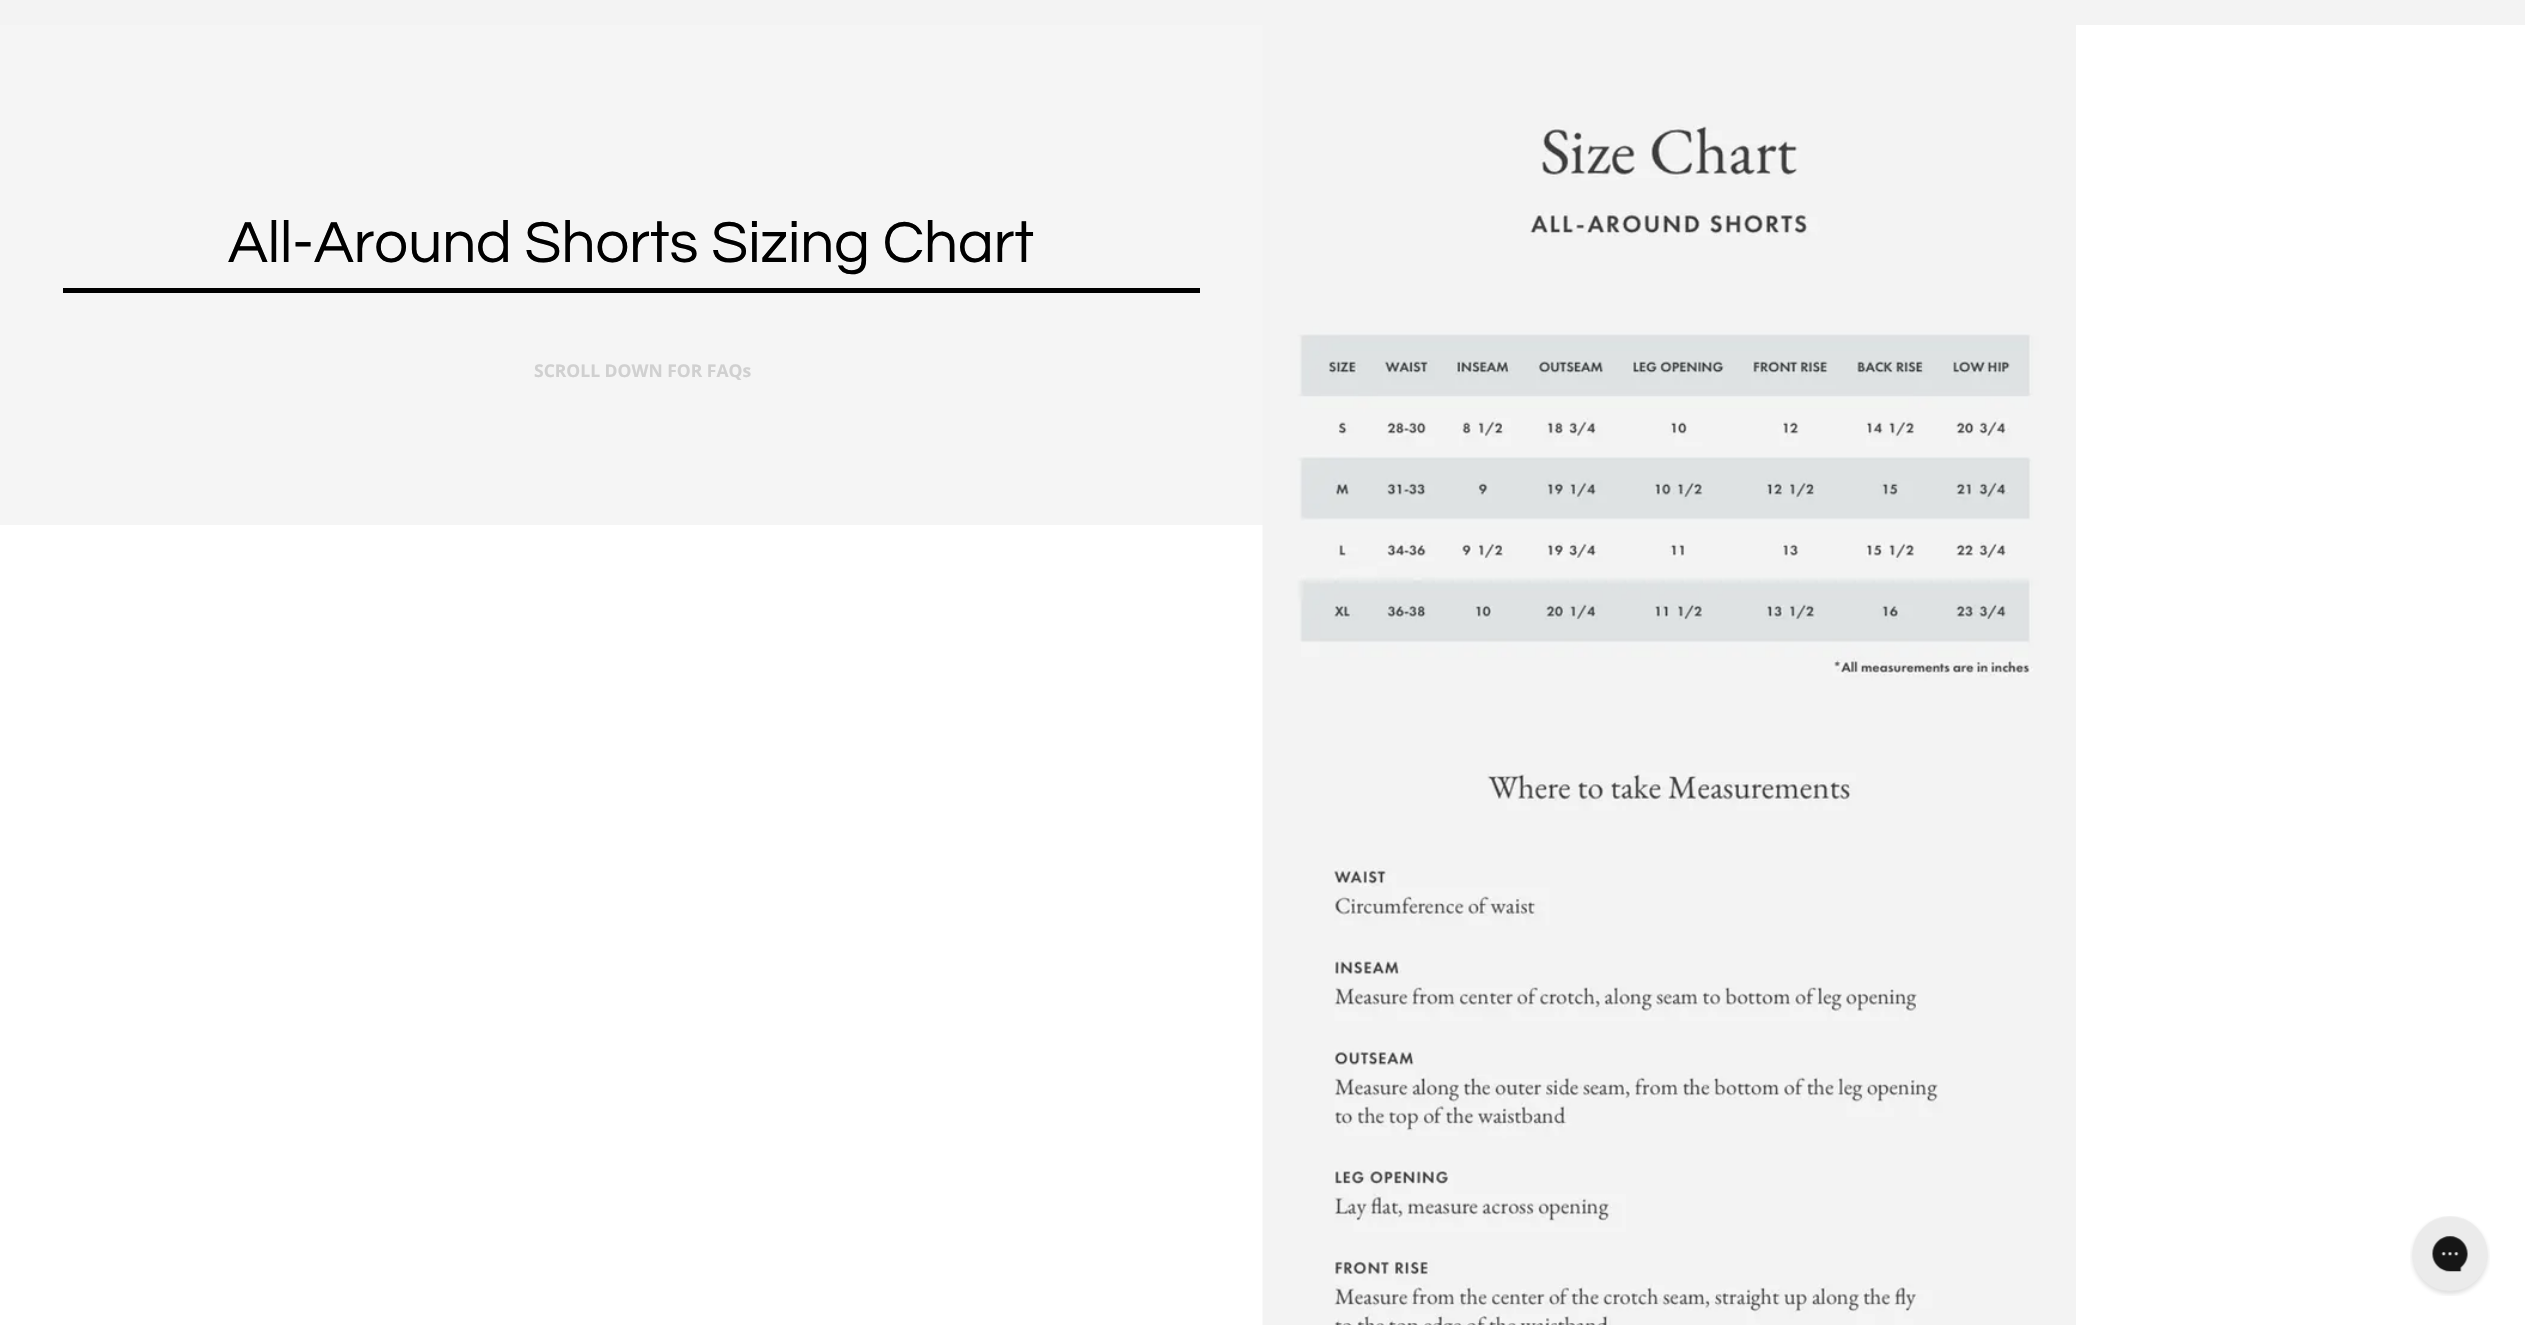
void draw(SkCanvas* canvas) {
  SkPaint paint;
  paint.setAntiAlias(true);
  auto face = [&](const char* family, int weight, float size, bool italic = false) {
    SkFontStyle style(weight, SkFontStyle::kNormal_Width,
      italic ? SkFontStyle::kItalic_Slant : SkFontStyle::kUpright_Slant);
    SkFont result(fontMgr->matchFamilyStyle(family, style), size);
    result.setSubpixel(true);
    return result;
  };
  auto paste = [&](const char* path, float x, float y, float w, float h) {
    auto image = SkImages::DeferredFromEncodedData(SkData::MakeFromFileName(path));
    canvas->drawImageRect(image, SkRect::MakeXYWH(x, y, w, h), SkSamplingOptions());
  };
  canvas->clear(0xfff3f3f3);
  {
    const struct { float x, y, w, h; SkColor color; } items[] = {
      {0, 25, 2525, 1300, 0xffffffff},
      {0, 25, 1263, 500, 0xfff5f5f5},
      {63, 288, 1137, 5, 0xff000000},
    };
    for (auto [x, y, w, h, color] : items) {
      paint.setColor(color);
      canvas->drawRect(SkRect::MakeXYWH(x, y, w, h), paint);
    }
  }
  paste("img/1.png", 1262, 25, 814, 1300);
  paste("img/2.png", 2410, 1216, 80, 80);
  auto f0 = face("Questrial", 400, 60);
  canvas->drawString("All-Around Shorts Sizing Chart", 228, 262, f0, paint);
  auto f1 = face("Open Sans", 700, 17.5f);
  paint.setColor(0xffd0d0d0);
  canvas->drawString("SCROLL DOWN FOR FAQs", 534, 377, f1, paint);
}
